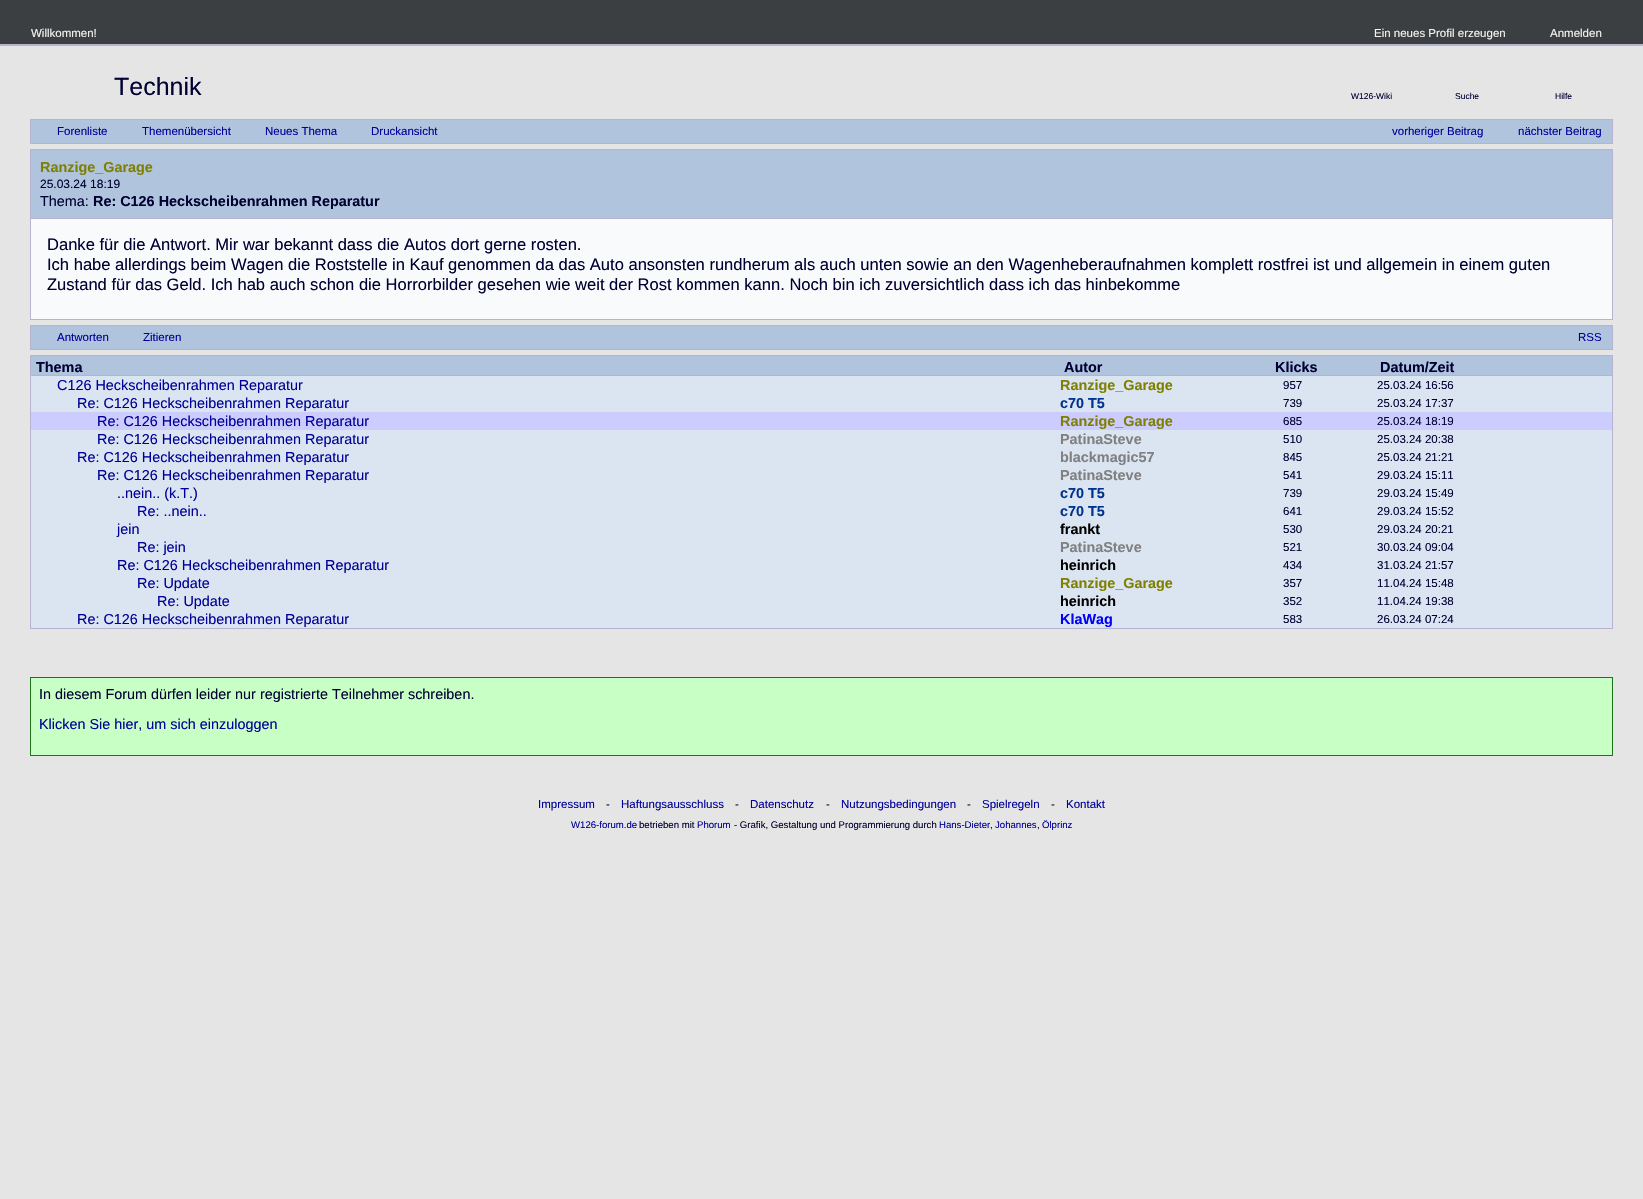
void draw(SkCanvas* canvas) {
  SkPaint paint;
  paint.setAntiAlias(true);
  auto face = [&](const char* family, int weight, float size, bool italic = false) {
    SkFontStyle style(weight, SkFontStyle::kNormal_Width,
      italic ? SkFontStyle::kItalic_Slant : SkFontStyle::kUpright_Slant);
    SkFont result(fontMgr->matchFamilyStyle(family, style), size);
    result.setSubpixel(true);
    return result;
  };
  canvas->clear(0xffe5e5e5);
  paint.setColor(0xff3c3f42);
  canvas->drawRect(SkRect::MakeXYWH(0, 0, 1643, 44), paint);
  paint.setColor(0xffb7b2cf);
  canvas->drawRect(SkRect::MakeXYWH(0, 44, 1643, 2), paint);
  paint.setColor(0xffb0c4de);
  canvas->drawRect(SkRect::MakeXYWH(30.5f, 119.5f, 1582, 24), paint);
  paint.setStroke(true);
  paint.setStrokeWidth(1);
  paint.setColor(0xffb7b2cf);
  canvas->drawRect(SkRect::MakeXYWH(30.5f, 119.5f, 1582, 24), paint);
  paint.setStroke(false);
  paint.setColor(0xffb0c4de);
  canvas->drawRect(SkRect::MakeXYWH(30.5f, 149.5f, 1582, 69), paint);
  paint.setStroke(true);
  paint.setColor(0xffb7b2cf);
  canvas->drawRect(SkRect::MakeXYWH(30.5f, 149.5f, 1582, 69), paint);
  paint.setStroke(false);
  {
    const struct { float x, y, w, h; SkColor color; } items[] = {
      {31, 219, 1581, 100, 0xfff8fafc},
      {1612, 219, 1, 101, 0xffb7b2cf},
      {30, 319, 1583, 1, 0xffb7b2cf},
      {30, 219, 1, 101, 0xffb7b2cf},
    };
    for (auto [x, y, w, h, color] : items) {
      paint.setColor(color);
      canvas->drawRect(SkRect::MakeXYWH(x, y, w, h), paint);
    }
  }
  paint.setColor(0xffb0c4de);
  canvas->drawRect(SkRect::MakeXYWH(30.5f, 325.5f, 1582, 24), paint);
  paint.setStroke(true);
  paint.setColor(0xffb7b2cf);
  canvas->drawRect(SkRect::MakeXYWH(30.5f, 325.5f, 1582, 24), paint);
  canvas->drawRect(SkRect::MakeXYWH(30.5f, 355.5f, 1582, 273), paint);
  paint.setStroke(false);
  {
    const struct { float x, y, w, h; SkColor color; } items[] = {
      {31, 356, 1581, 19, 0xffb0c4de},
      {31, 375, 1581, 1, 0xffb7b2cf},
      {31, 376, 1581, 18, 0xffdbe5f1},
      {31, 394, 1581, 18, 0xffdbe5f1},
      {31, 412, 1581, 18, 0xffccccff},
      {31, 430, 1581, 18, 0xffdbe5f1},
      {31, 448, 1581, 18, 0xffdbe5f1},
      {31, 466, 1581, 18, 0xffdbe5f1},
      {31, 484, 1581, 18, 0xffdbe5f1},
      {31, 502, 1581, 18, 0xffdbe5f1},
      {31, 520, 1581, 18, 0xffdbe5f1},
      {31, 538, 1581, 18, 0xffdbe5f1},
      {31, 556, 1581, 18, 0xffdbe5f1},
      {31, 574, 1581, 18, 0xffdbe5f1},
      {31, 592, 1581, 18, 0xffdbe5f1},
      {31, 610, 1581, 18, 0xffdbe5f1},
    };
    for (auto [x, y, w, h, color] : items) {
      paint.setColor(color);
      canvas->drawRect(SkRect::MakeXYWH(x, y, w, h), paint);
    }
  }
  paint.setColor(0xffc8ffc4);
  canvas->drawRect(SkRect::MakeXYWH(30.5f, 677.5f, 1582, 78), paint);
  paint.setStroke(true);
  paint.setColor(0xff1c7519);
  canvas->drawRect(SkRect::MakeXYWH(30.5f, 677.5f, 1582, 78), paint);
  auto f0 = face("Liberation Sans", 400, 11.5f);
  paint.setStroke(false);
  paint.setColor(0xfff1f1f1);
  {
    const struct { const char* s; float x, y; } items[] = {
      {"Willkommen!", 31, 37},
      {"Ein neues Profil erzeugen", 1374, 37},
      {"Anmelden", 1550, 37},
    };
    for (auto [s, x, y] : items) {
      canvas->drawString(s, x, y, f0, paint);
    }
  }
  auto f1 = face("Liberation Sans", 400, 25);
  paint.setColor(0xff000033);
  canvas->drawString("Technik", 114, 95, f1, paint);
  auto f2 = face("Liberation Sans", 400, 8.5f);
  {
    const struct { const char* s; float x, y; } items[] = {
      {"W126-Wiki", 1351, 99},
      {"Suche", 1455, 99},
      {"Hilfe", 1555, 99},
    };
    for (auto [s, x, y] : items) {
      canvas->drawString(s, x, y, f2, paint);
    }
  }
  paint.setColor(0xff000099);
  {
    const struct { const char* s; float x, y; } items[] = {
      {"Forenliste", 57, 135},
      {"Themenübersicht", 142, 135},
      {"Neues Thema", 265, 135},
      {"Druckansicht", 371, 135},
      {"vorheriger Beitrag", 1392, 135},
      {"nächster Beitrag", 1518, 135},
    };
    for (auto [s, x, y] : items) {
      canvas->drawString(s, x, y, f0, paint);
    }
  }
  auto f3 = face("Liberation Sans", 700, 14.4f);
  paint.setColor(0xff808000);
  canvas->drawString("Ranzige_Garage", 40, 172, f3, paint);
  auto f4 = face("Liberation Sans", 400, 12);
  paint.setColor(0xff000033);
  canvas->drawString("25.03.24 18:19", 40, 188, f4, paint);
  auto f5 = face("Liberation Sans", 400, 14.4f);
  canvas->drawString("Thema:", 40, 206, f5, paint);
  canvas->drawString("Re: C126 Heckscheibenrahmen Reparatur", 93, 206, f3, paint);
  auto f6 = face("Liberation Sans", 400, 16.55f);
  {
    const struct { const char* s; float x, y; } items[] = {
      {"Danke für die Antwort. Mir war bekannt dass die Autos dort gerne rosten.", 47, 250},
      {"Ich habe allerdings beim Wagen die Roststelle in Kauf genommen da das Auto ansonsten rundherum als auch unten sowie an den Wagenheberaufnahmen komplett rostfrei ist und allgemein in einem guten", 47, 270},
      {"Zustand für das Geld. Ich hab auch schon die Horrorbilder gesehen wie weit der Rost kommen kann. Noch bin ich zuversichtlich dass ich das hinbekomme", 47, 290},
    };
    for (auto [s, x, y] : items) {
      canvas->drawString(s, x, y, f6, paint);
    }
  }
  paint.setColor(0xff000099);
  {
    const struct { const char* s; float x, y; } items[] = {
      {"Antworten", 57, 341},
      {"Zitieren", 143, 341},
      {"RSS", 1578, 341},
    };
    for (auto [s, x, y] : items) {
      canvas->drawString(s, x, y, f0, paint);
    }
  }
  paint.setColor(0xff000033);
  {
    const struct { const char* s; float x, y; } items[] = {
      {"Thema", 36, 372},
      {"Autor", 1064, 372},
      {"Klicks", 1275, 372},
      {"Datum/Zeit", 1380, 372},
    };
    for (auto [s, x, y] : items) {
      canvas->drawString(s, x, y, f3, paint);
    }
  }
  paint.setColor(0xff000099);
  canvas->drawString("C126 Heckscheibenrahmen Reparatur", 57, 390, f5, paint);
  paint.setColor(0xff808000);
  canvas->drawString("Ranzige_Garage", 1060, 390, f3, paint);
  paint.setColor(0xff000033);
  canvas->drawString("957", 1283, 389, f0, paint);
  canvas->drawString("25.03.24 16:56", 1377, 389, f0, paint);
  paint.setColor(0xff000099);
  canvas->drawString("Re: C126 Heckscheibenrahmen Reparatur", 77, 408, f5, paint);
  paint.setColor(0xff003390);
  canvas->drawString("c70 T5", 1060, 408, f3, paint);
  paint.setColor(0xff000033);
  canvas->drawString("739", 1283, 407, f0, paint);
  canvas->drawString("25.03.24 17:37", 1377, 407, f0, paint);
  paint.setColor(0xff000099);
  canvas->drawString("Re: C126 Heckscheibenrahmen Reparatur", 97, 426, f5, paint);
  paint.setColor(0xff808000);
  canvas->drawString("Ranzige_Garage", 1060, 426, f3, paint);
  paint.setColor(0xff000033);
  canvas->drawString("685", 1283, 425, f0, paint);
  canvas->drawString("25.03.24 18:19", 1377, 425, f0, paint);
  paint.setColor(0xff000099);
  canvas->drawString("Re: C126 Heckscheibenrahmen Reparatur", 97, 444, f5, paint);
  paint.setColor(0xff808080);
  canvas->drawString("PatinaSteve", 1060, 444, f3, paint);
  paint.setColor(0xff000033);
  canvas->drawString("510", 1283, 443, f0, paint);
  canvas->drawString("25.03.24 20:38", 1377, 443, f0, paint);
  paint.setColor(0xff000099);
  canvas->drawString("Re: C126 Heckscheibenrahmen Reparatur", 77, 462, f5, paint);
  paint.setColor(0xff808080);
  canvas->drawString("blackmagic57", 1060, 462, f3, paint);
  paint.setColor(0xff000033);
  canvas->drawString("845", 1283, 461, f0, paint);
  canvas->drawString("25.03.24 21:21", 1377, 461, f0, paint);
  paint.setColor(0xff000099);
  canvas->drawString("Re: C126 Heckscheibenrahmen Reparatur", 97, 480, f5, paint);
  paint.setColor(0xff808080);
  canvas->drawString("PatinaSteve", 1060, 480, f3, paint);
  paint.setColor(0xff000033);
  canvas->drawString("541", 1283, 479, f0, paint);
  canvas->drawString("29.03.24 15:11", 1377, 479, f0, paint);
  paint.setColor(0xff000099);
  canvas->drawString("..nein.. (k.T.)", 117, 498, f5, paint);
  paint.setColor(0xff003390);
  canvas->drawString("c70 T5", 1060, 498, f3, paint);
  paint.setColor(0xff000033);
  canvas->drawString("739", 1283, 497, f0, paint);
  canvas->drawString("29.03.24 15:49", 1377, 497, f0, paint);
  paint.setColor(0xff000099);
  canvas->drawString("Re: ..nein..", 137, 516, f5, paint);
  paint.setColor(0xff003390);
  canvas->drawString("c70 T5", 1060, 516, f3, paint);
  paint.setColor(0xff000033);
  canvas->drawString("641", 1283, 515, f0, paint);
  canvas->drawString("29.03.24 15:52", 1377, 515, f0, paint);
  paint.setColor(0xff000099);
  canvas->drawString("jein", 117, 534, f5, paint);
  paint.setColor(0xff000000);
  canvas->drawString("frankt", 1060, 534, f3, paint);
  paint.setColor(0xff000033);
  canvas->drawString("530", 1283, 533, f0, paint);
  canvas->drawString("29.03.24 20:21", 1377, 533, f0, paint);
  paint.setColor(0xff000099);
  canvas->drawString("Re: jein", 137, 552, f5, paint);
  paint.setColor(0xff808080);
  canvas->drawString("PatinaSteve", 1060, 552, f3, paint);
  paint.setColor(0xff000033);
  canvas->drawString("521", 1283, 551, f0, paint);
  canvas->drawString("30.03.24 09:04", 1377, 551, f0, paint);
  paint.setColor(0xff000099);
  canvas->drawString("Re: C126 Heckscheibenrahmen Reparatur", 117, 570, f5, paint);
  paint.setColor(0xff000000);
  canvas->drawString("heinrich", 1060, 570, f3, paint);
  paint.setColor(0xff000033);
  canvas->drawString("434", 1283, 569, f0, paint);
  canvas->drawString("31.03.24 21:57", 1377, 569, f0, paint);
  paint.setColor(0xff000099);
  canvas->drawString("Re: Update", 137, 588, f5, paint);
  paint.setColor(0xff808000);
  canvas->drawString("Ranzige_Garage", 1060, 588, f3, paint);
  paint.setColor(0xff000033);
  canvas->drawString("357", 1283, 587, f0, paint);
  canvas->drawString("11.04.24 15:48", 1377, 587, f0, paint);
  paint.setColor(0xff000099);
  canvas->drawString("Re: Update", 157, 606, f5, paint);
  paint.setColor(0xff000000);
  canvas->drawString("heinrich", 1060, 606, f3, paint);
  paint.setColor(0xff000033);
  canvas->drawString("352", 1283, 605, f0, paint);
  canvas->drawString("11.04.24 19:38", 1377, 605, f0, paint);
  paint.setColor(0xff000099);
  canvas->drawString("Re: C126 Heckscheibenrahmen Reparatur", 77, 624, f5, paint);
  paint.setColor(0xff0000ff);
  canvas->drawString("KlaWag", 1060, 624, f3, paint);
  paint.setColor(0xff000033);
  canvas->drawString("583", 1283, 623, f0, paint);
  canvas->drawString("26.03.24 07:24", 1377, 623, f0, paint);
  canvas->drawString("In diesem Forum dürfen leider nur registrierte Teilnehmer schreiben.", 39, 699, f5, paint);
  paint.setColor(0xff000099);
  canvas->drawString("Klicken Sie hier, um sich einzuloggen", 39, 729, f5, paint);
  canvas->drawString("Impressum", 538, 808, f0, paint);
  paint.setColor(0xff000033);
  canvas->drawString("-", 606, 808, f0, paint);
  paint.setColor(0xff000099);
  canvas->drawString("Haftungsausschluss", 621, 808, f0, paint);
  paint.setColor(0xff000033);
  canvas->drawString("-", 735, 808, f0, paint);
  paint.setColor(0xff000099);
  canvas->drawString("Datenschutz", 750, 808, f0, paint);
  paint.setColor(0xff000033);
  canvas->drawString("-", 826, 808, f0, paint);
  paint.setColor(0xff000099);
  canvas->drawString("Nutzungsbedingungen", 841, 808, f0, paint);
  paint.setColor(0xff000033);
  canvas->drawString("-", 967, 808, f0, paint);
  paint.setColor(0xff000099);
  canvas->drawString("Spielregeln", 982, 808, f0, paint);
  paint.setColor(0xff000033);
  canvas->drawString("-", 1051, 808, f0, paint);
  paint.setColor(0xff000099);
  canvas->drawString("Kontakt", 1066, 808, f0, paint);
  auto f7 = face("Liberation Sans", 400, 9.6f);
  canvas->drawString("W126-forum.de", 571, 828, f7, paint);
  paint.setColor(0xff000033);
  canvas->drawString("betrieben mit", 639, 828, f7, paint);
  paint.setColor(0xff000099);
  canvas->drawString("Phorum", 697, 828, f7, paint);
  paint.setColor(0xff000033);
  canvas->drawString("- Grafik, Gestaltung und Programmierung durch", 734, 828, f7, paint);
  paint.setColor(0xff000099);
  canvas->drawString("Hans-Dieter", 939, 828, f7, paint);
  paint.setColor(0xff000033);
  canvas->drawString(",", 990, 828, f7, paint);
  paint.setColor(0xff000099);
  canvas->drawString("Johannes", 995, 828, f7, paint);
  paint.setColor(0xff000033);
  canvas->drawString(",", 1037, 828, f7, paint);
  paint.setColor(0xff000099);
  canvas->drawString("Ölprinz", 1042, 828, f7, paint);
}
